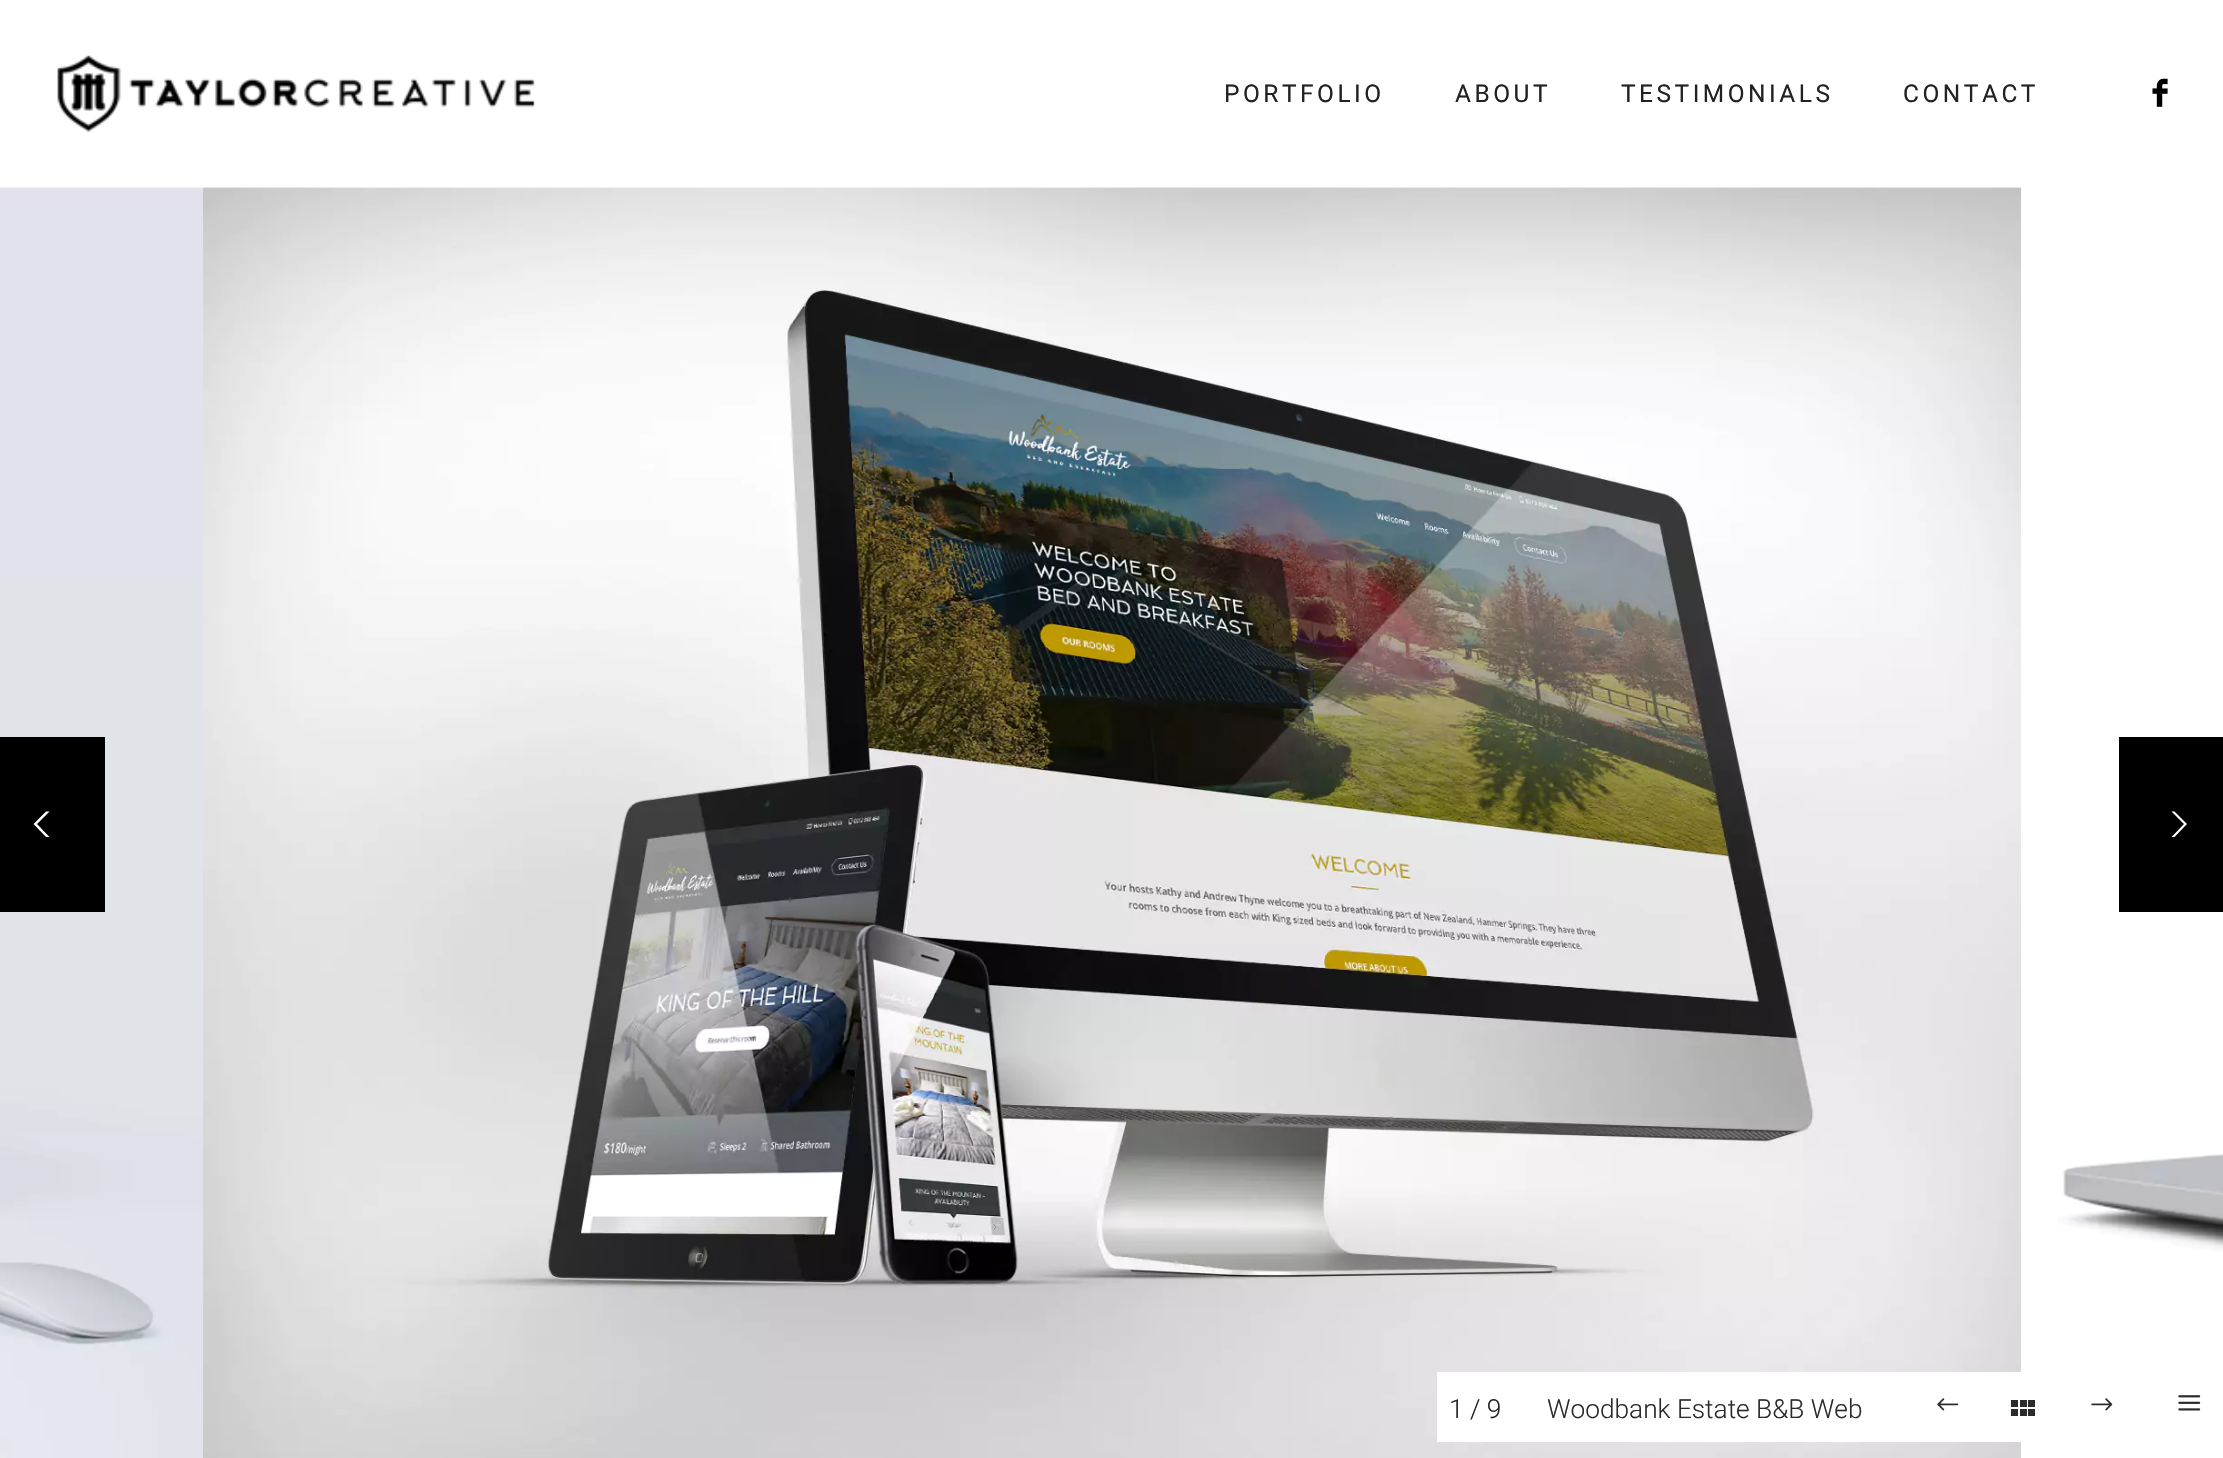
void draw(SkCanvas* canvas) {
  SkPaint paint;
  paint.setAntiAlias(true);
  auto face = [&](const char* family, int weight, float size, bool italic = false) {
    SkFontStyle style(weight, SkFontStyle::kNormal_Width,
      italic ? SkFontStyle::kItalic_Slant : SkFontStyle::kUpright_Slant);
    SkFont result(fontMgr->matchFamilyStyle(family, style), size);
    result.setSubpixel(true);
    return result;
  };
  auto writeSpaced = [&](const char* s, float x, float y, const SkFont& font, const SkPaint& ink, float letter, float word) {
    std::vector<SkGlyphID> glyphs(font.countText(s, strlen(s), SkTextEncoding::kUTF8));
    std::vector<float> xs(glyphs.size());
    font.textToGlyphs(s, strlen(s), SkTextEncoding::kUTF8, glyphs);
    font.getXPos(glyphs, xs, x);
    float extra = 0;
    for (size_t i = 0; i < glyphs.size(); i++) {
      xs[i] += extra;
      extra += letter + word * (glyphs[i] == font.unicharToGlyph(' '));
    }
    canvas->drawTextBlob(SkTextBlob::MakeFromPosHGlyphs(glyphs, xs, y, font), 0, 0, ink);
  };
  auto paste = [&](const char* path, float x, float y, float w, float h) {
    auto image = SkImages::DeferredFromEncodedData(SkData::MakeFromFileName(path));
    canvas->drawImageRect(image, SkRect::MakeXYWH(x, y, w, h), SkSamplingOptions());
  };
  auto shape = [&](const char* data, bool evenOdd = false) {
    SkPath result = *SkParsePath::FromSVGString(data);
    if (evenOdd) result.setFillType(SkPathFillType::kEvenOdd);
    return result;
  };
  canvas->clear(0xffffffff);
  paste("img/1.png", 57, 55, 478, 77);
  paste("img/2.png", 2152, 78, 16, 29);
  paste("img/3.png", 0, 187, 203, 1271);
  paste("img/4.png", 203, 187, 1819, 1271);
  paste("img/5.png", 2058, 1153, 165, 98);
  paint.setColor(0xff000000);
  canvas->drawRect(SkRect::MakeXYWH(0, 737, 105, 175), paint);
  paint.setColor(0xffffffff);
  canvas->drawPath(shape("M33.5 824L46 837H49.5L37 824L49.5 811.5H46Z"), paint);
  paint.setColor(0xff000000);
  canvas->drawRect(SkRect::MakeXYWH(2119, 737, 104, 175), paint);
  paint.setColor(0xffffffff);
  canvas->drawPath(shape("M2187 824L2174.5 811.5H2171.5L2184 824L2171.5 837H2174.5Z"), paint);
  canvas->drawRect(SkRect::MakeXYWH(1437, 1372, 584, 70), paint);
  paste("img/6.png", 1937, 1398, 22, 13);
  {
    const struct { float x, y, w, h; SkColor color; } items[] = {
      {2011, 1400, 7, 7, 0xff2b2b2b},
      {2020, 1400, 7, 7, 0xff2b2b2b},
      {2028, 1400, 7, 7, 0xff2b2b2b},
      {2011, 1409, 7, 7, 0xff2b2b2b},
      {2020, 1409, 7, 7, 0xff2b2b2b},
      {2028, 1409, 7, 7, 0xff2b2b2b},
    };
    for (auto [x, y, w, h, color] : items) {
      paint.setColor(color);
      canvas->drawRect(SkRect::MakeXYWH(x, y, w, h), paint);
    }
  }
  paste("img/7.png", 2091, 1398, 22, 13);
  paste("img/8.png", 2178, 1395, 23, 16);
  auto f0 = face("Roboto", 400, 24.5f);
  paint.setColor(0xff222222);
  {
    const struct { const char* s; float x, y; } items[] = {
      {"PORTFOLIO", 1224, 102},
      {"ABOUT", 1455, 102},
      {"TESTIMONIALS", 1621, 102},
      {"CONTACT", 1903, 102},
    };
    for (auto [s, x, y] : items) {
      writeSpaced(s, x, y, f0, paint, 3.5f, 0);
    }
  }
  auto f1 = face("Roboto", 300, 26.25f);
  canvas->drawString("1 / 9", 1449, 1418, f1, paint);
  paint.setColor(0xff2b2b2b);
  canvas->drawString("Woodbank Estate B&B Web", 1547, 1418, f1, paint);
}
